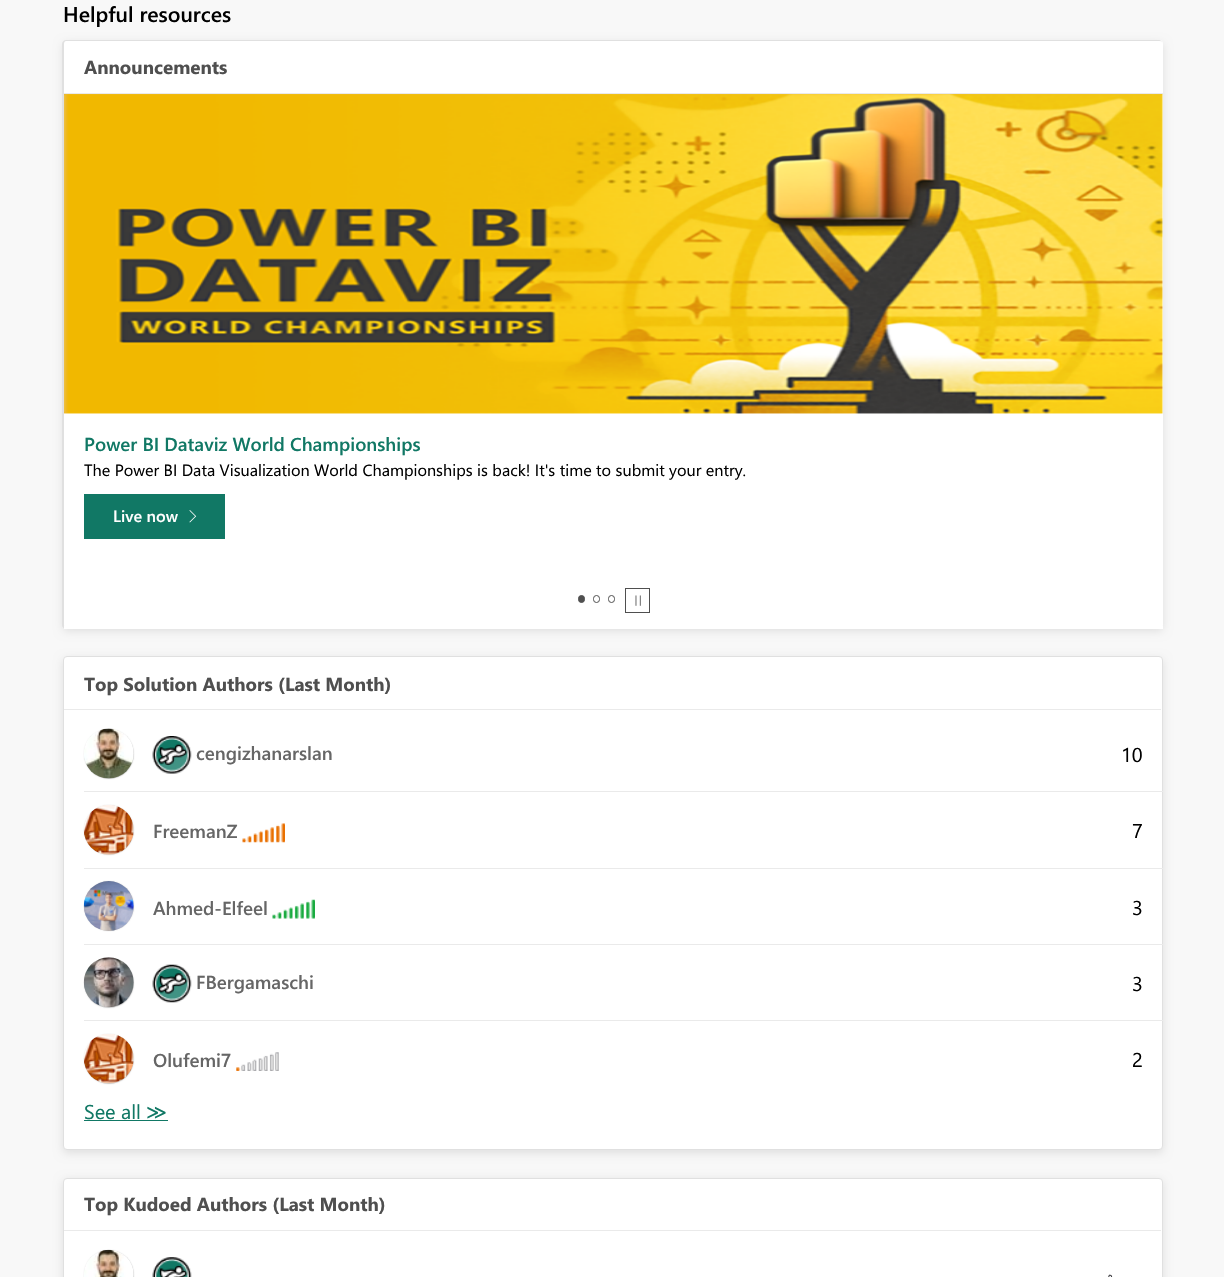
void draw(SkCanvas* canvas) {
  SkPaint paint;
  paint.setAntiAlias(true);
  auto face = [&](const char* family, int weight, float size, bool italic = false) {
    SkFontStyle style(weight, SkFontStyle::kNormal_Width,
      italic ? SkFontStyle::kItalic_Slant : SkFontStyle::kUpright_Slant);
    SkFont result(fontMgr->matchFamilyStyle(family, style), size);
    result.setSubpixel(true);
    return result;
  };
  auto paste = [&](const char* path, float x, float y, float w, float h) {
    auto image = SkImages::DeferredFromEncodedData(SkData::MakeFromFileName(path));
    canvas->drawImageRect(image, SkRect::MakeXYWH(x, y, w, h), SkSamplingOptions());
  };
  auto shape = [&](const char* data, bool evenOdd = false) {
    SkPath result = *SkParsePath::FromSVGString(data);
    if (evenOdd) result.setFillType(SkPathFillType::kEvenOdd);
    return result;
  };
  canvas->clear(0xfff8f8f8);
  paint.setColor(0x1a000000);
  paint.setMaskFilter(SkMaskFilter::MakeBlur(kNormal_SkBlurStyle, 5));
  canvas->drawRoundRect(SkRect::MakeXYWH(63, 43, 1100, 588), 4, 4, paint);
  paint.setMaskFilter(nullptr);
  paint.setColor(0xffffffff);
  canvas->drawRoundRect(SkRect::MakeXYWH(63, 40, 1100, 589), 4, 4, paint);
  paint.setColor(0xffe0e0e0);
  canvas->drawPath(shape("M66 40H1159C1161 40 1162 42 1162 44V625C1162 627 1161 629 1159 629H66C64 629 62 627 62 625V44C62 42 64 40 66 40ZM66 41H1159C1161 41 1162 42 1162 44V625C1162 627 1161 629 1159 629H66C65 629 64 627 64 625V44C64 42 65 41 66 41Z", true), paint);
  paint.setColor(0xffffffff);
  canvas->drawPath(shape("M68 41H1159C1161 41 1163 43 1163 45V94H64V45C64 43 66 41 68 41Z"), paint);
  paint.setColor(0xffeaeaea);
  canvas->drawRect(SkRect::MakeXYWH(64, 93, 1099, 1), paint);
  paint.setColor(0xffffffff);
  canvas->drawRect(SkRect::MakeXYWH(64, 626, 1099, 3), paint);
  paste("img/1.png", 64, 94, 1099, 320);
  paint.setColor(0xff117865);
  canvas->drawRect(SkRect::MakeXYWH(84, 494, 141, 45), paint);
  paste("img/2.png", 189, 510, 8, 13);
  paint.setColor(0xff4f4f4f);
  canvas->drawRoundRect(SkRect::MakeXYWH(578.5f, 595.5f, 6, 7), 3, 3, paint);
  paint.setStroke(true);
  paint.setStrokeWidth(1);
  canvas->drawRoundRect(SkRect::MakeXYWH(578.5f, 595.5f, 6, 7), 3, 3, paint);
  canvas->drawRoundRect(SkRect::MakeXYWH(593.5f, 595.5f, 6, 7), 3, 3, paint);
  canvas->drawRoundRect(SkRect::MakeXYWH(608.5f, 595.5f, 6, 7), 3, 3, paint);
  canvas->drawRect(SkRect::MakeXYWH(625.5f, 588.5f, 24, 24), paint);
  paste("img/3.png", 635, 595, 6, 11);
  paint.setStroke(false);
  paint.setColor(0x1a000000);
  paint.setMaskFilter(SkMaskFilter::MakeBlur(kNormal_SkBlurStyle, 5));
  canvas->drawRoundRect(SkRect::MakeXYWH(63, 659, 1100, 494), 4, 4, paint);
  paint.setMaskFilter(nullptr);
  paint.setColor(0xffffffff);
  canvas->drawRoundRect(SkRect::MakeXYWH(63.5f, 656.5f, 1099, 493), 3.5f, 3.5f, paint);
  paint.setStroke(true);
  paint.setColor(0xffe0e0e0);
  canvas->drawRoundRect(SkRect::MakeXYWH(63.5f, 656.5f, 1099, 493), 3.5f, 3.5f, paint);
  paint.setStroke(false);
  paint.setColor(0xffeaeaea);
  canvas->drawRect(SkRect::MakeXYWH(64, 709, 1097, 1), paint);
  canvas->drawRect(SkRect::MakeXYWH(84, 791, 1079, 1), paint);
  paint.setColor(0xffc4c4c4);
  paint.setMaskFilter(SkMaskFilter::MakeBlur(kNormal_SkBlurStyle, 0.5f));
  canvas->drawRoundRect(SkRect::MakeXYWH(84, 729, 50, 50), 25, 25, paint);
  paint.setMaskFilter(nullptr);
  paste("img/4.png", 84, 728, 50, 51);
  paste("img/5.png", 152, 736, 40, 38);
  paint.setColor(0xffeaeaea);
  canvas->drawRect(SkRect::MakeXYWH(84, 868, 1079, 1), paint);
  paint.setColor(0xffc4c4c4);
  paint.setMaskFilter(SkMaskFilter::MakeBlur(kNormal_SkBlurStyle, 0.5f));
  canvas->drawRoundRect(SkRect::MakeXYWH(84, 805, 50, 50), 25, 25, paint);
  paint.setMaskFilter(nullptr);
  paste("img/6.png", 83, 805, 51, 50);
  paste("img/7.png", 242, 823, 43, 20);
  paint.setColor(0xffeaeaea);
  canvas->drawRect(SkRect::MakeXYWH(84, 944, 1079, 1), paint);
  paint.setColor(0xffc4c4c4);
  paint.setMaskFilter(SkMaskFilter::MakeBlur(kNormal_SkBlurStyle, 0.5f));
  canvas->drawRoundRect(SkRect::MakeXYWH(84, 881, 50, 50), 25, 25, paint);
  paint.setMaskFilter(nullptr);
  paste("img/8.png", 83, 881, 51, 50);
  paste("img/9.png", 272, 899, 43, 20);
  paint.setColor(0xffeaeaea);
  canvas->drawRect(SkRect::MakeXYWH(84, 1020, 1079, 1), paint);
  paint.setColor(0xffc4c4c4);
  paint.setMaskFilter(SkMaskFilter::MakeBlur(kNormal_SkBlurStyle, 0.5f));
  canvas->drawRoundRect(SkRect::MakeXYWH(84, 958, 50, 50), 25, 25, paint);
  paint.setMaskFilter(nullptr);
  paste("img/10.png", 83, 957, 51, 51);
  paste("img/11.png", 152, 964, 40, 39);
  paint.setMaskFilter(SkMaskFilter::MakeBlur(kNormal_SkBlurStyle, 0.5f));
  canvas->drawRoundRect(SkRect::MakeXYWH(84, 1034, 50, 50), 25, 25, paint);
  paint.setMaskFilter(nullptr);
  paste("img/12.png", 83, 1034, 51, 50);
  paste("img/13.png", 236, 1052, 43, 19);
  paint.setColor(0xff117865);
  canvas->drawRect(SkRect::MakeXYWH(84, 1120, 84, 1), paint);
  paint.setColor(0x1a000000);
  paint.setMaskFilter(SkMaskFilter::MakeBlur(kNormal_SkBlurStyle, 5));
  canvas->drawRoundRect(SkRect::MakeXYWH(63, 1180, 1100, 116), 4, 4, paint);
  paint.setMaskFilter(nullptr);
  paint.setColor(0xffffffff);
  canvas->drawRoundRect(SkRect::MakeXYWH(63.5f, 1178.5f, 1099, 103), 3.5f, 3.5f, paint);
  paint.setStroke(true);
  paint.setColor(0xffe0e0e0);
  canvas->drawRoundRect(SkRect::MakeXYWH(63.5f, 1178.5f, 1099, 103), 3.5f, 3.5f, paint);
  paint.setStroke(false);
  paint.setColor(0xffeaeaea);
  canvas->drawRect(SkRect::MakeXYWH(64, 1230, 1097, 1), paint);
  paint.setColor(0xffc4c4c4);
  paint.setMaskFilter(SkMaskFilter::MakeBlur(kNormal_SkBlurStyle, 0.5f));
  canvas->drawRoundRect(SkRect::MakeXYWH(84, 1250, 50, 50), 25, 25, paint);
  paint.setMaskFilter(nullptr);
  paste("img/14.png", 84, 1249, 50, 28);
  paste("img/15.png", 152, 1257, 40, 20);
  paste("img/16.png", 1108, 1274, 5, 3);
  auto f0 = face("Segoe UI", 600, 21.25f);
  paint.setColor(0xff000000);
  canvas->drawString("Helpful resources", 63, 22, f0, paint);
  auto f1 = face("Segoe UI", 700, 18.75f);
  paint.setColor(0xff4f4f4f);
  canvas->drawString("Announcements", 84, 74, f1, paint);
  auto f2 = face("Segoe UI", 600, 18.75f);
  paint.setColor(0xff117865);
  canvas->drawString("Power BI Dataviz World Championships", 84, 451, f2, paint);
  auto f3 = face("Segoe UI", 400, 16.25f);
  paint.setColor(0xff000000);
  canvas->drawString("The Power BI Data Visualization World Championships is back! It's time to submit your entry.", 84, 476, f3, paint);
  auto f4 = face("Segoe UI", 600, 16.25f);
  paint.setColor(0xffffffff);
  canvas->drawString("Live now", 113, 522, f4, paint);
  paint.setColor(0xff4f4f4f);
  canvas->drawString("Top Solution Authors (Last Month)", 84, 691, f1, paint);
  paint.setColor(0xff666666);
  canvas->drawString("cengizhanarslan", 196, 760, f2, paint);
  auto f5 = face("Segoe UI", 400, 20);
  paint.setColor(0xff000000);
  canvas->drawString("10", 1121, 762, f5, paint);
  paint.setColor(0xff666666);
  canvas->drawString("FreemanZ", 153, 838, f2, paint);
  paint.setColor(0xff000000);
  canvas->drawString("7", 1132, 838, f5, paint);
  paint.setColor(0xff666666);
  canvas->drawString("Ahmed-Elfeel", 153, 915, f2, paint);
  paint.setColor(0xff000000);
  canvas->drawString("3", 1132, 915, f5, paint);
  paint.setColor(0xff666666);
  canvas->drawString("FBergamaschi", 196, 989, f2, paint);
  paint.setColor(0xff000000);
  canvas->drawString("3", 1132, 991, f5, paint);
  paint.setColor(0xff666666);
  canvas->drawString("Olufemi7", 153, 1067, f2, paint);
  paint.setColor(0xff000000);
  canvas->drawString("2", 1132, 1067, f5, paint);
  paint.setColor(0xff117865);
  canvas->drawString("See all", 84, 1119, f5, paint);
  auto f6 = face("DejaVu Sans", 400, 20);
  canvas->drawString("≫", 146, 1119, f6, paint);
  paint.setColor(0xff4f4f4f);
  canvas->drawString("Top Kudoed Authors (Last Month)", 84, 1211, f1, paint);
}
